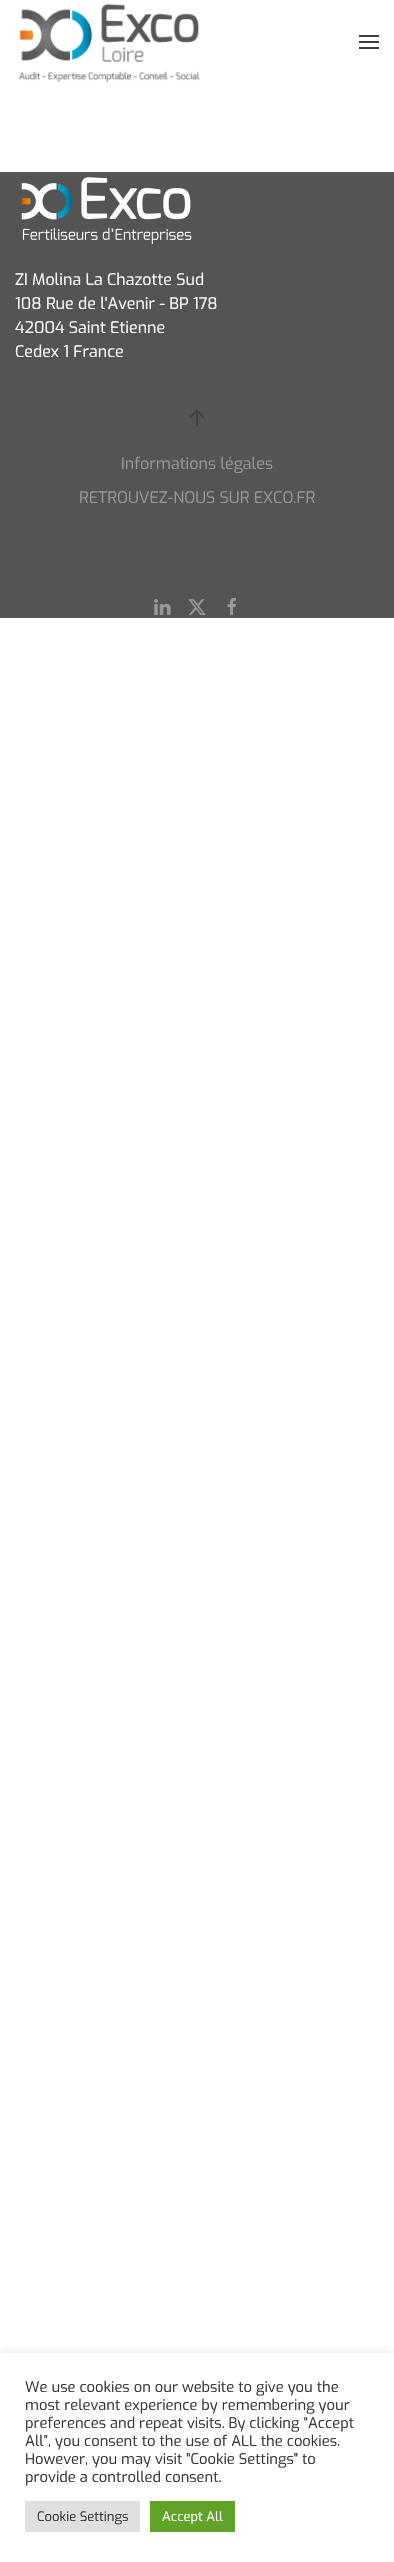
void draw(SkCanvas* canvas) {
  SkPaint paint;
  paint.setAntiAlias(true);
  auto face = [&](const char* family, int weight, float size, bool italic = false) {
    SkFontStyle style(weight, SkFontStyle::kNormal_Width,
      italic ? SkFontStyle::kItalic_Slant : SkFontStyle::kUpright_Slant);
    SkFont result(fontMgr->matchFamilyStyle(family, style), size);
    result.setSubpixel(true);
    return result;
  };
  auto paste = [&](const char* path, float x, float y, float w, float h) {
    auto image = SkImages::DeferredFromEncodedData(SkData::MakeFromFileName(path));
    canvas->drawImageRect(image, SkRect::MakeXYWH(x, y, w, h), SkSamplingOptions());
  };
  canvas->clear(0xffffffff);
  paste("img/1.png", 18, 3, 182, 80);
  {
    const struct { float x, y, w, h; SkColor color; } items[] = {
      {359, 35, 20, 2, 0xff3d3d3d},
      {359, 41, 20, 2, 0xff3d3d3d},
      {359, 47, 20, 2, 0xff3d3d3d},
      {0, 172, 394, 446, 0xff545454},
    };
    for (auto [x, y, w, h, color] : items) {
      paint.setColor(color);
      canvas->drawRect(SkRect::MakeXYWH(x, y, w, h), paint);
    }
  }
  paste("img/2.png", 21, 177, 171, 67);
  paste("img/3.png", 189, 409, 16, 18);
  paste("img/4.png", 154, 599, 17, 16);
  paste("img/5.png", 188, 599, 18, 16);
  paste("img/6.png", 227, 598, 9, 17);
  canvas->save();
  canvas->clipRect(SkRect::MakeXYWH(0, 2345, 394, 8));
  paint.setColor(0x4dacabab);
  paint.setMaskFilter(SkMaskFilter::MakeBlur(kNormal_SkBlurStyle, 5));
  canvas->drawRect(SkRect::MakeXYWH(0, 2352, 394, 209), paint);
  paint.setMaskFilter(nullptr);
  canvas->restore();
  paint.setColor(0xffdedfe0);
  canvas->drawRect(SkRect::MakeXYWH(25, 2501, 115, 31), paint);
  paint.setColor(0xff61a229);
  canvas->drawRect(SkRect::MakeXYWH(150, 2501, 85, 31), paint);
  auto f0 = face("Exo", 400, 16);
  paint.setColor(0xffffffff);
  {
    const struct { const char* s; float x, y; } items[] = {
      {"ZI Molina La Chazotte Sud", 15, 285},
      {"108 Rue de l'Avenir - BP 178", 15, 309},
      {"42004 Saint Etienne", 15, 333},
      {"Cedex 1 France", 15, 357},
    };
    for (auto [s, x, y] : items) {
      canvas->drawString(s, x, y, f0, paint);
    }
  }
  paint.setColor(0xff999999);
  canvas->drawString("Informations légales", 121, 469, f0, paint);
  canvas->drawString("RETROUVEZ-NOUS SUR EXCO.FR", 79, 503, f0, paint);
  auto f1 = face("Exo", 400, 14.7f);
  paint.setColor(0xff333333);
  {
    const struct { const char* s; float x, y; } items[] = {
      {"We use cookies on our website to give you the", 25, 2392},
      {"most relevant experience by remembering your", 25, 2410},
      {"preferences and repeat visits. By clicking “Accept", 25, 2428},
      {"All”, you consent to the use of ALL the cookies.", 25, 2446},
      {"However, you may visit \"Cookie Settings\" to", 25, 2464},
      {"provide a controlled consent.", 25, 2482},
    };
    for (auto [s, x, y] : items) {
      canvas->drawString(s, x, y, f1, paint);
    }
  }
  auto f2 = face("Exo", 400, 13);
  canvas->drawString("Cookie Settings", 37, 2521, f2, paint);
  paint.setColor(0xffffffff);
  canvas->drawString("Accept All", 162, 2521, f2, paint);
}
